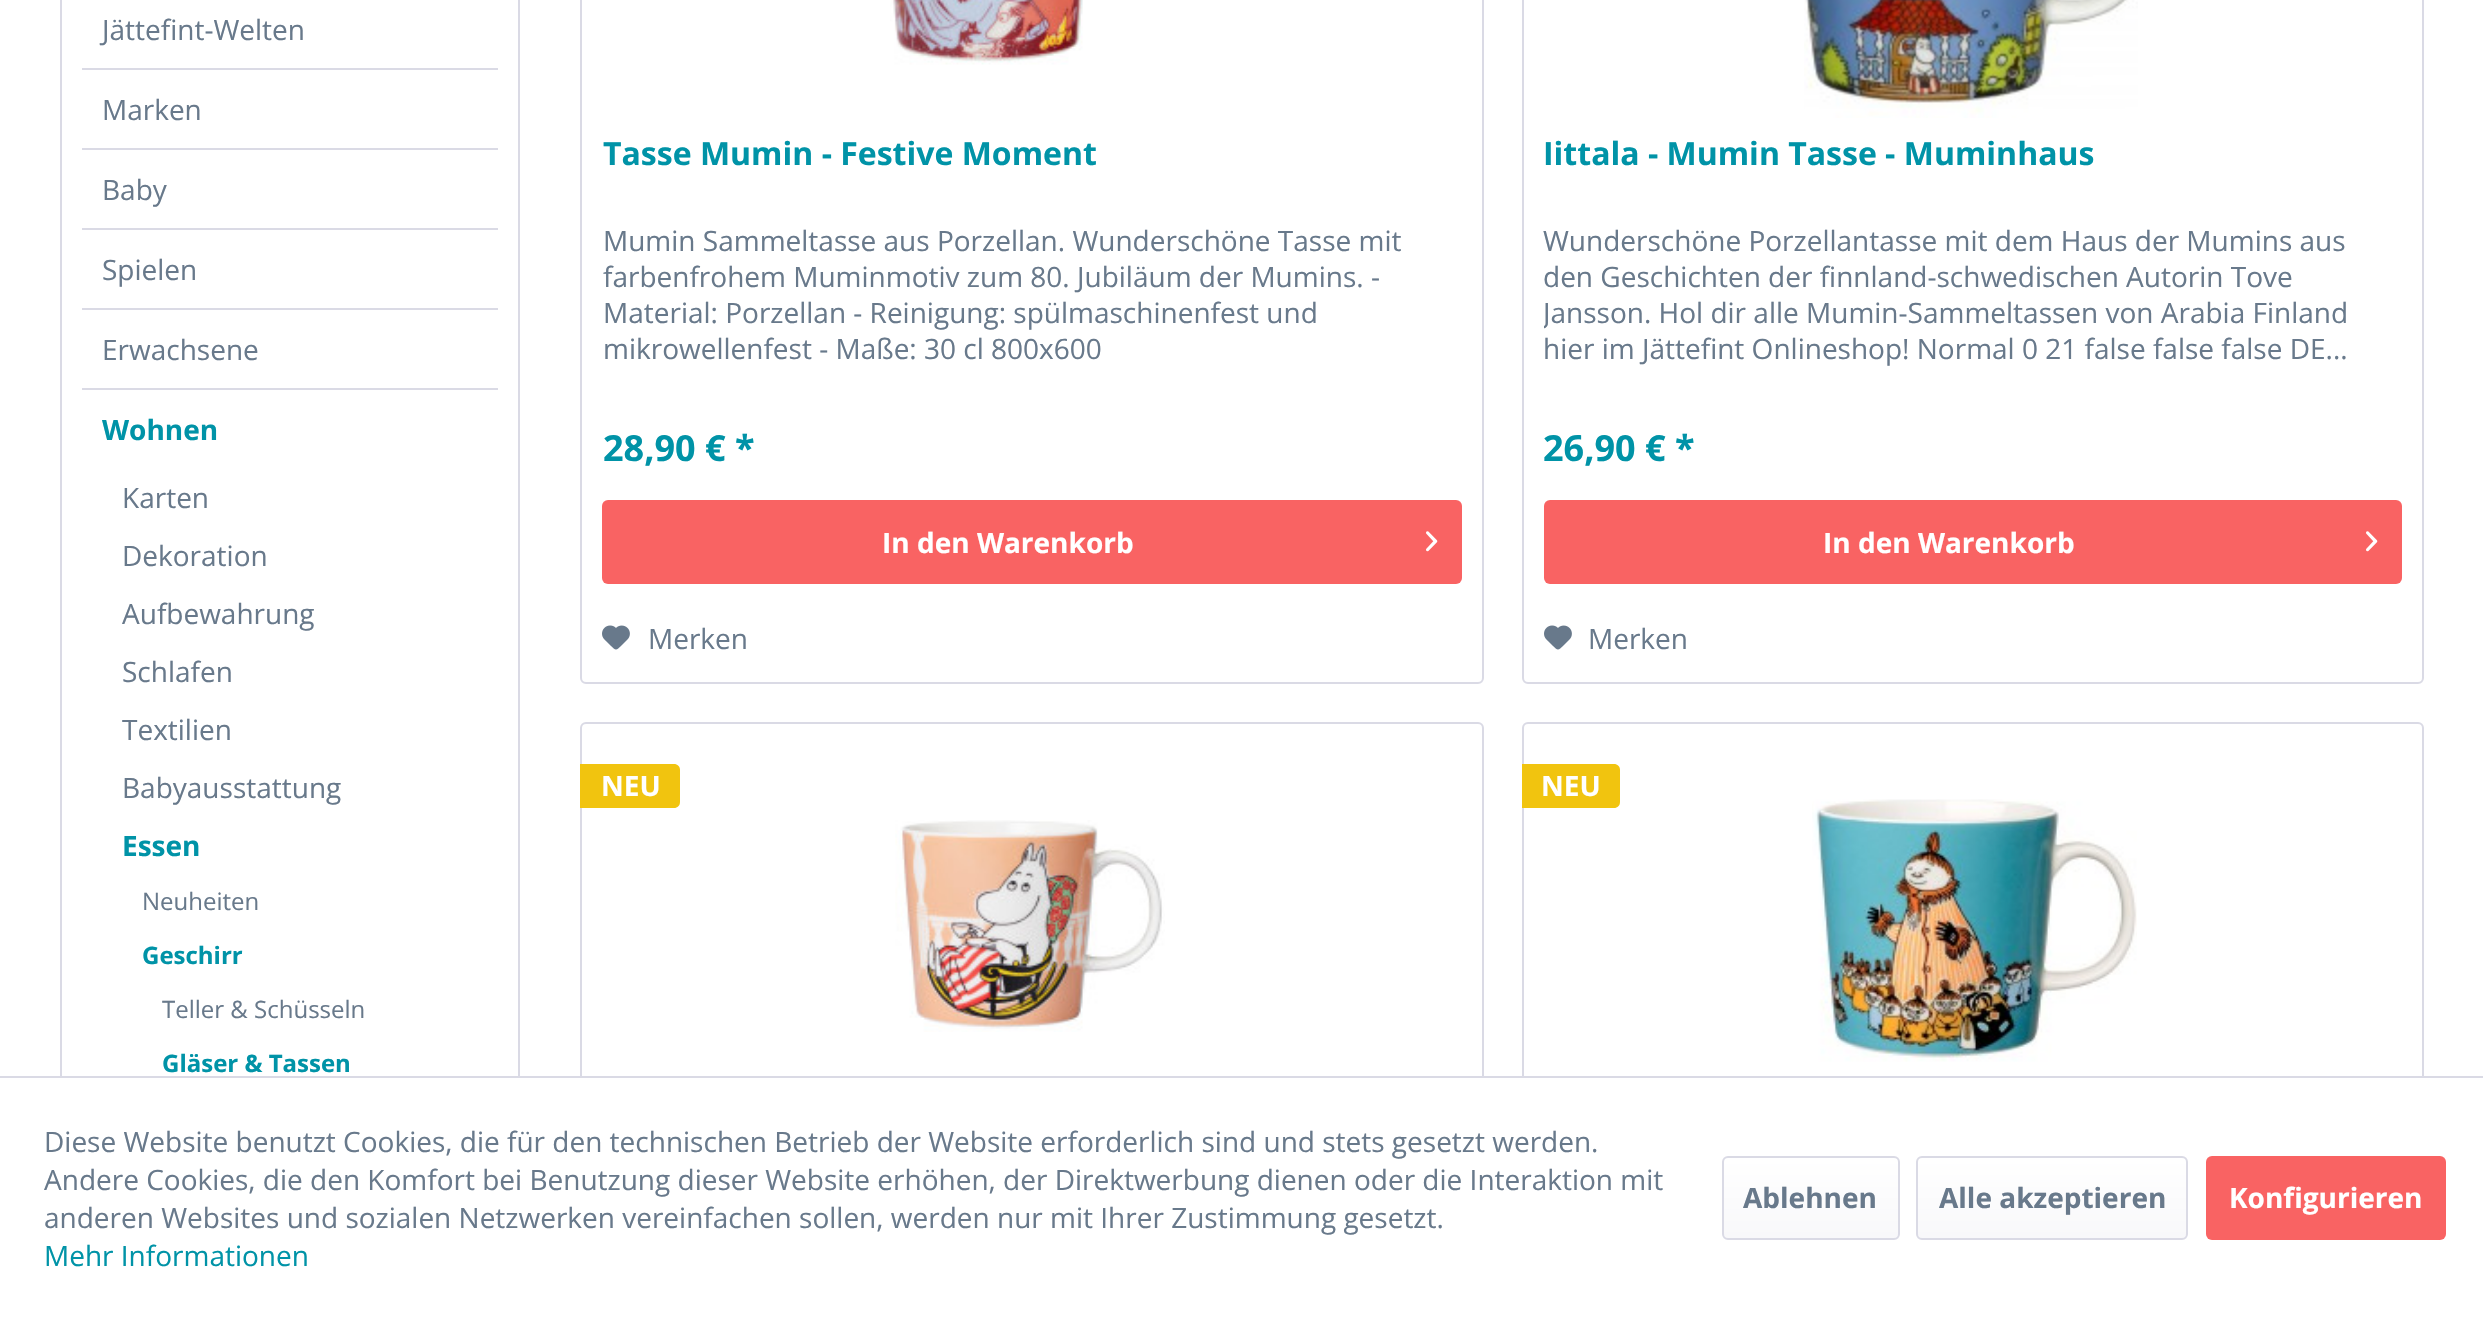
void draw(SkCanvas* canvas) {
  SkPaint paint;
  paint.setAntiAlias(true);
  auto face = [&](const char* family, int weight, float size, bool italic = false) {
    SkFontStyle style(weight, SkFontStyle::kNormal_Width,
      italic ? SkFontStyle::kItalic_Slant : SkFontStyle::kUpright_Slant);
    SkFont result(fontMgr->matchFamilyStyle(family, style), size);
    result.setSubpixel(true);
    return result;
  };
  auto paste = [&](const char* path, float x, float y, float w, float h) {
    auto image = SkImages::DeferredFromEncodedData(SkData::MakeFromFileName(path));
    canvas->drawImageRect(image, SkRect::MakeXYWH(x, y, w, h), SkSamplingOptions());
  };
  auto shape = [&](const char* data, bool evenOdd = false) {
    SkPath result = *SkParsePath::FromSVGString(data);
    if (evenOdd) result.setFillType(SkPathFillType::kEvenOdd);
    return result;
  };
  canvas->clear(0xffffffff);
  paint.setStroke(true);
  paint.setStrokeWidth(2);
  paint.setColor(0xffdadae5);
  canvas->drawRect(SkRect::MakeXYWH(61, -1, 458, 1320), paint);
  paint.setStroke(false);
  {
    const struct { float x, y, w, h; SkColor color; } items[] = {
      {82, 68, 416, 2, 0xffdadae5},
      {82, 148, 416, 2, 0xffdadae5},
      {82, 228, 416, 2, 0xffdadae5},
      {82, 308, 416, 2, 0xffdadae5},
      {82, 388, 416, 2, 0xffdadae5},
    };
    for (auto [x, y, w, h, color] : items) {
      paint.setColor(color);
      canvas->drawRect(SkRect::MakeXYWH(x, y, w, h), paint);
    }
  }
  paint.setStroke(true);
  canvas->drawRoundRect(SkRect::MakeXYWH(581, -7, 902, 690), 5, 5, paint);
  paste("img/1.png", 890, 0, 193, 65);
  paint.setStroke(false);
  paint.setColor(0xfff96363);
  canvas->drawRoundRect(SkRect::MakeXYWH(602, 500, 860, 84), 6, 6, paint);
  paste("img/2.png", 1426, 531, 12, 21);
  paste("img/3.png", 602, 625, 28, 25);
  paint.setStroke(true);
  paint.setColor(0xffdadae5);
  canvas->drawRoundRect(SkRect::MakeXYWH(1523, -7, 900, 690), 5, 5, paint);
  paste("img/4.png", 1804, 0, 334, 118);
  paint.setStroke(false);
  paint.setColor(0xfff96363);
  canvas->drawRoundRect(SkRect::MakeXYWH(1544, 500, 858, 84), 6, 6, paint);
  paste("img/2.png", 2366, 531, 12, 21);
  paste("img/3.png", 1544, 625, 28, 25);
  paint.setStroke(true);
  paint.setColor(0xffdadae5);
  canvas->drawRoundRect(SkRect::MakeXYWH(581, 723, 902, 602), 5, 5, paint);
  paint.setStroke(false);
  paint.setColor(0xfff1c40f);
  canvas->drawPath(shape("M580 764H674C677.5 764 680 766.5 680 770V802C680 805.5 677.5 808 674 808H580Z"), paint);
  paste("img/5.png", 895, 820, 270, 212);
  paint.setStroke(true);
  paint.setColor(0xffdadae5);
  canvas->drawRoundRect(SkRect::MakeXYWH(1523, 723, 900, 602), 5, 5, paint);
  paint.setStroke(false);
  paint.setColor(0xfff1c40f);
  canvas->drawPath(shape("M1522 764H1614C1617.5 764 1620 766.5 1620 770V802C1620 805.5 1617.5 808 1614 808H1522Z"), paint);
  paste("img/6.png", 1812, 799, 325, 263);
  paint.setColor(0xffffffff);
  canvas->drawRect(SkRect::MakeXYWH(60, 1078, 2364, 240), paint);
  paint.setColor(0xffdadae5);
  canvas->drawRect(SkRect::MakeXYWH(0, 1076, 2483, 2), paint);
  {
    const SkColor colors[] = {0xffffffff, 0xfff8f8fa};
    const float stops[] = {0, 1};
    const SkPoint ends[] = {{1811, 1158}, {1811, 1238}};
    paint.setShader(SkGradientShader::MakeLinear(ends, colors, stops, 2, SkTileMode::kClamp));
    paint.setAlpha(255);
  }
  canvas->drawRoundRect(SkRect::MakeXYWH(1724, 1158, 174, 80), 4, 4, paint);
  paint.setStroke(true);
  paint.setShader(nullptr);
  paint.setColor(0xffdadae5);
  canvas->drawRoundRect(SkRect::MakeXYWH(1723, 1157, 176, 82), 5, 5, paint);
  paint.setStroke(false);
  {
    const SkColor colors[] = {0xffffffff, 0xfff8f8fa};
    const float stops[] = {0, 1};
    const SkPoint ends[] = {{2052, 1158}, {2052, 1238}};
    paint.setShader(SkGradientShader::MakeLinear(ends, colors, stops, 2, SkTileMode::kClamp));
    paint.setAlpha(255);
  }
  canvas->drawRoundRect(SkRect::MakeXYWH(1918, 1158, 268, 80), 4, 4, paint);
  paint.setStroke(true);
  paint.setShader(nullptr);
  paint.setColor(0xffdadae5);
  canvas->drawRoundRect(SkRect::MakeXYWH(1917, 1157, 270, 82), 5, 5, paint);
  paint.setStroke(false);
  paint.setColor(0xfff96363);
  canvas->drawRoundRect(SkRect::MakeXYWH(2206, 1156, 240, 84), 6, 6, paint);
  auto f0 = face("Open Sans", 400, 28);
  paint.setColor(0xff68798b);
  {
    const struct { const char* s; float x, y; } items[] = {
      {"Jättefint-Welten", 102, 40},
      {"Marken", 102, 120},
      {"Baby", 102, 200},
      {"Spielen", 102, 280},
      {"Erwachsene", 102, 360},
    };
    for (auto [s, x, y] : items) {
      canvas->drawString(s, x, y, f0, paint);
    }
  }
  auto f1 = face("Open Sans", 700, 28);
  paint.setColor(0xff0093a7);
  canvas->drawString("Wohnen", 102, 440, f1, paint);
  paint.setColor(0xff68798b);
  {
    const struct { const char* s; float x, y; } items[] = {
      {"Karten", 122, 508},
      {"Dekoration", 122, 566},
      {"Aufbewahrung", 122, 624},
      {"Schlafen", 122, 682},
      {"Textilien", 122, 740},
      {"Babyausstattung", 122, 798},
    };
    for (auto [s, x, y] : items) {
      canvas->drawString(s, x, y, f0, paint);
    }
  }
  paint.setColor(0xff0093a7);
  canvas->drawString("Essen", 122, 856, f1, paint);
  auto f2 = face("Open Sans", 400, 24);
  paint.setColor(0xff68798b);
  canvas->drawString("Neuheiten", 142, 910, f2, paint);
  auto f3 = face("Open Sans", 700, 24);
  paint.setColor(0xff0093a7);
  canvas->drawString("Geschirr", 142, 964, f3, paint);
  paint.setColor(0xff68798b);
  canvas->drawString("Teller & Schüsseln", 162, 1018, f2, paint);
  paint.setColor(0xff0093a7);
  canvas->drawString("Gläser & Tassen", 162, 1072, f3, paint);
  auto f4 = face("Open Sans", 700, 32);
  canvas->drawString("Tasse Mumin - Festive Moment", 603, 165, f4, paint);
  paint.setColor(0xff68798b);
  {
    const struct { const char* s; float x, y; } items[] = {
      {"Mumin Sammeltasse aus Porzellan. Wunderschöne Tasse mit", 603, 251},
      {"farbenfrohem Muminmotiv zum 80. Jubiläum der Mumins. -", 603, 287},
      {"Material: Porzellan - Reinigung: spülmaschinenfest und", 603, 323},
      {"mikrowellenfest - Maße: 30 cl 800x600", 603, 359},
    };
    for (auto [s, x, y] : items) {
      canvas->drawString(s, x, y, f0, paint);
    }
  }
  auto f5 = face("Open Sans", 700, 36);
  paint.setColor(0xff0093a7);
  canvas->drawString("28,90 € *", 603, 461, f5, paint);
  paint.setColor(0xffffffff);
  canvas->drawString("In den Warenkorb", 882, 553, f1, paint);
  paint.setColor(0xff68798b);
  canvas->drawString("Merken", 648, 649, f0, paint);
  paint.setColor(0xff0093a7);
  canvas->drawString("Iittala - Mumin Tasse - Muminhaus", 1543, 165, f4, paint);
  paint.setColor(0xff68798b);
  canvas->drawString("Wunderschöne Porzellantasse mit dem Haus der Mumins aus", 1543, 251, f0, paint);
  canvas->drawString("den Geschichten der finnland-schwedischen Autorin Tove", 1543, 287, f0, paint);
  canvas->save();
  canvas->clipRect(SkRect::MakeXYWH(1544, 222, 858, 144));
  canvas->drawString("Jansson. Hol dir alle Mumin-Sammeltassen von Arabia Finland", 1543, 323, f0, paint);
  canvas->restore();
  canvas->drawString("hier im Jättefint Onlineshop! Normal 0 21 false false false DE...", 1543, 359, f0, paint);
  paint.setColor(0xff0093a7);
  canvas->drawString("26,90 € *", 1543, 461, f5, paint);
  paint.setColor(0xffffffff);
  canvas->drawString("In den Warenkorb", 1823, 553, f1, paint);
  paint.setColor(0xff68798b);
  canvas->drawString("Merken", 1588, 649, f0, paint);
  paint.setColor(0xffffffff);
  canvas->drawString("NEU", 601, 796, f1, paint);
  canvas->drawString("NEU", 1541, 796, f1, paint);
  paint.setColor(0xff68798b);
  {
    const struct { const char* s; float x, y; } items[] = {
      {"Diese Website benutzt Cookies, die für den technischen Betrieb der Website erforderlich sind und stets gesetzt werden.", 44, 1152},
      {"Andere Cookies, die den Komfort bei Benutzung dieser Website erhöhen, der Direktwerbung dienen oder die Interaktion mit", 44, 1190},
      {"anderen Websites und sozialen Netzwerken vereinfachen sollen, werden nur mit Ihrer Zustimmung gesetzt.", 44, 1228},
    };
    for (auto [s, x, y] : items) {
      canvas->drawString(s, x, y, f0, paint);
    }
  }
  paint.setColor(0xff0093a7);
  canvas->drawString("Mehr Informationen", 44, 1266, f0, paint);
  paint.setColor(0xff68798b);
  canvas->drawString("Ablehnen", 1743, 1208, f1, paint);
  canvas->drawString("Alle akzeptieren", 1939, 1208, f1, paint);
  paint.setColor(0xffffffff);
  canvas->drawString("Konfigurieren", 2229, 1208, f1, paint);
}
